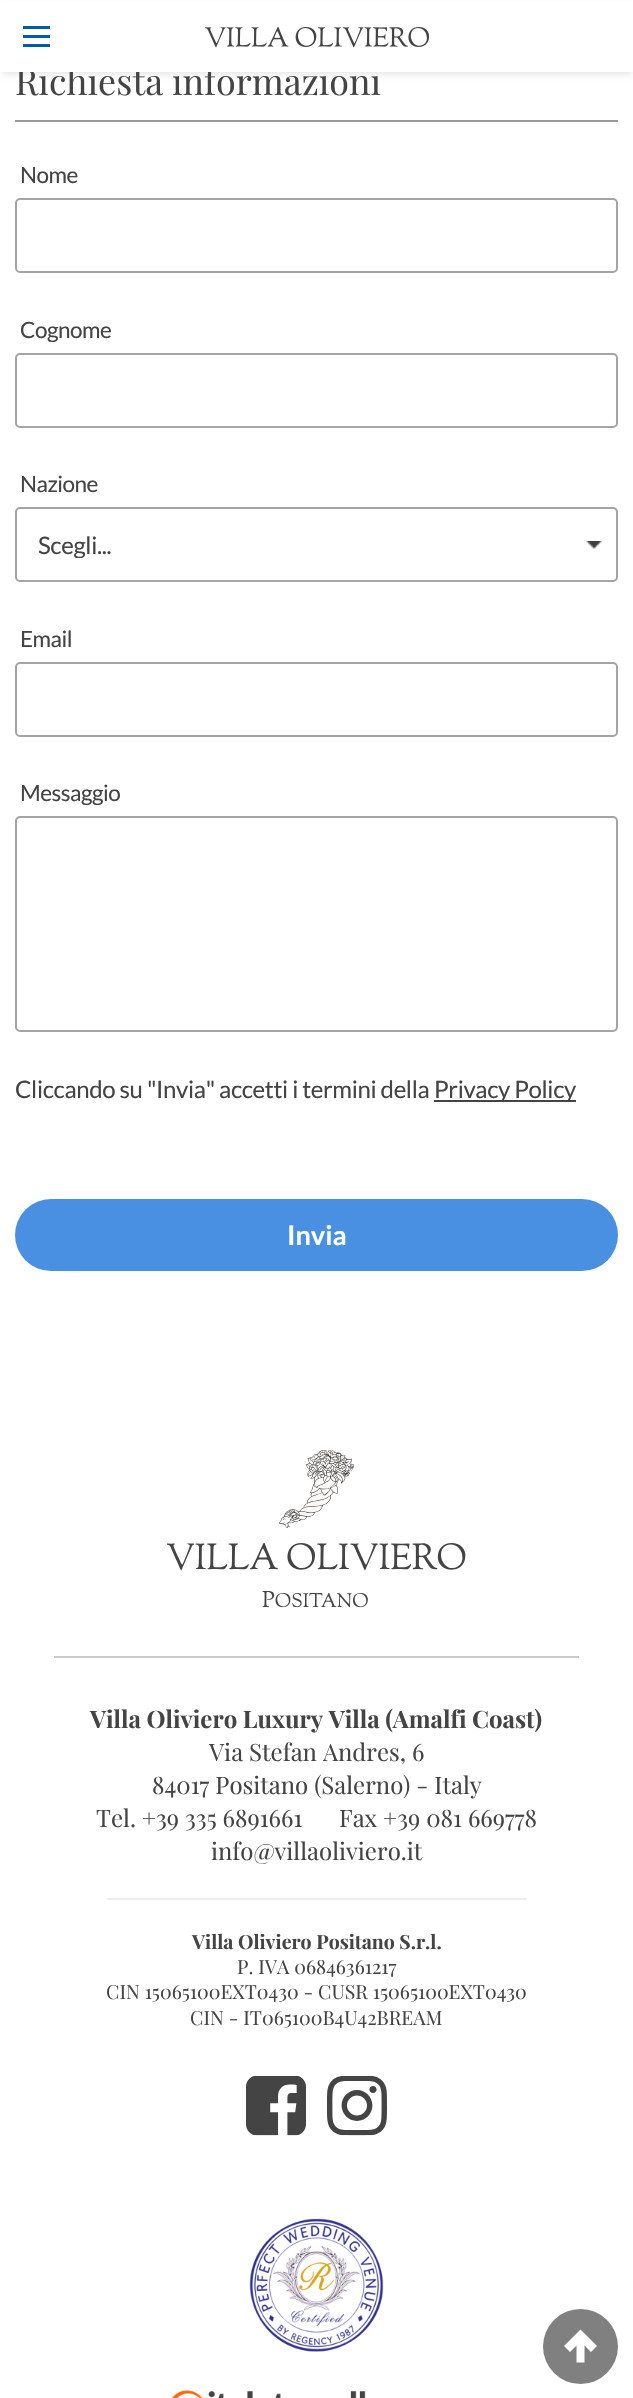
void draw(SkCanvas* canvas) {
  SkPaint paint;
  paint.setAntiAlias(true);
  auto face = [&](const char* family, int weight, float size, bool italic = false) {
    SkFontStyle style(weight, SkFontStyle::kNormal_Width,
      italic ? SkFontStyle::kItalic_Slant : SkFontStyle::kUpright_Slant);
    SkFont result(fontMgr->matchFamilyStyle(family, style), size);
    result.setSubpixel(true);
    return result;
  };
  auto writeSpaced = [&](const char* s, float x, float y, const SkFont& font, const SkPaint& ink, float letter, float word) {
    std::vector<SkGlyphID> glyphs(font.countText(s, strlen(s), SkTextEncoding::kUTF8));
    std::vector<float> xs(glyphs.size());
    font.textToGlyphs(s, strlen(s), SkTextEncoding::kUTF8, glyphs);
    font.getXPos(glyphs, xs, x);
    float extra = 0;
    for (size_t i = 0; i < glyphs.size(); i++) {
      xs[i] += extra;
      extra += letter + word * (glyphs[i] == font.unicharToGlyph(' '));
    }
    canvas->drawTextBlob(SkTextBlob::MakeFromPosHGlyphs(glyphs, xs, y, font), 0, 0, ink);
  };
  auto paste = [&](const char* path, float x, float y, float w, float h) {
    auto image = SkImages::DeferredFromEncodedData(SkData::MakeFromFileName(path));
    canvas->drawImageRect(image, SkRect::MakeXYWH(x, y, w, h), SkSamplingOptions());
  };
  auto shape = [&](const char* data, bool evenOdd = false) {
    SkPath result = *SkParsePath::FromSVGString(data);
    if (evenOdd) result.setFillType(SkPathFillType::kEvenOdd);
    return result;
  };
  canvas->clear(0xffffffff);
  paint.setColor(0x1a000000);
  paint.setMaskFilter(SkMaskFilter::MakeBlur(kNormal_SkBlurStyle, 3));
  canvas->drawRect(SkRect::MakeXYWH(2, 5, 630, 69), paint);
  paint.setMaskFilter(nullptr);
  paint.setColor(0xff999999);
  canvas->drawRect(SkRect::MakeXYWH(15, 120, 603, 2), paint);
  paint.setStroke(true);
  paint.setStrokeWidth(2);
  paint.setColor(0xffa4a4a4);
  canvas->drawRoundRect(SkRect::MakeXYWH(16, 199, 601, 73), 4, 4, paint);
  canvas->drawRoundRect(SkRect::MakeXYWH(16, 354, 601, 73), 4, 4, paint);
  paste("img/2.png", 586, 541, 16, 8);
  canvas->drawRoundRect(SkRect::MakeXYWH(16, 508, 601, 73), 4, 4, paint);
  canvas->drawRoundRect(SkRect::MakeXYWH(16, 663, 601, 73), 4, 4, paint);
  canvas->drawRoundRect(SkRect::MakeXYWH(16, 817, 601, 214), 4, 4, paint);
  paint.setStroke(false);
  paint.setColor(0xff444444);
  canvas->drawRect(SkRect::MakeXYWH(434, 1100, 142, 2), paint);
  paint.setColor(0xff4a90e2);
  canvas->drawRoundRect(SkRect::MakeXYWH(15, 1199, 603, 72), 36, 36, paint);
  paint.setColor(0xffcacaca);
  canvas->drawRect(SkRect::MakeXYWH(54, 1656, 525, 2), paint);
  paste("img/3.png", 167, 1450, 299, 158);
  paint.setColor(0xffeeeeee);
  canvas->drawRect(SkRect::MakeXYWH(107, 1898, 420, 2), paint);
  paste("img/4.png", 246, 2076, 60, 60);
  paste("img/5.png", 327, 2076, 60, 60);
  paste("img/6.png", 249, 2218, 135, 134);
  paste("img/7.png", 172, 2390, 194, 8);
  paint.setColor(0xff808080);
  canvas->drawCircle(580.5f, 2346.5f, 37.5f, paint);
  paint.setColor(0xffffffff);
  canvas->drawPath(shape("M564 2346L570 2352L576.5 2345.5V2362.5H584.5V2345.5L591 2352L597 2346L580.5 2329.5Z", true), paint);
  auto f0 = face("Playfair Display", 400, 36);
  paint.setColor(0xff444444);
  canvas->drawString("Richiesta informazioni", 15, 95, f0, paint);
  {
    const struct { float x, y, w, h; SkColor color; } items[] = {
      {0, 1, 633, 71, 0xffffffff},
      {23, 44, 27, 3, 0xff045aa5},
      {23, 26, 27, 3, 0xff045aa5},
      {23, 35, 27, 3, 0xff045aa5},
    };
    for (auto [x, y, w, h, color] : items) {
      paint.setColor(color);
      canvas->drawRect(SkRect::MakeXYWH(x, y, w, h), paint);
    }
  }
  paste("img/1.png", 205, 27, 225, 21);
  auto f1 = face("Lato", 400, 22.5f);
  paint.setColor(0xff444444);
  {
    const struct { const char* s; float x, y; } items[] = {
      {"Nome", 20, 183},
      {"Cognome", 20, 338},
      {"Nazione", 20, 492},
    };
    for (auto [s, x, y] : items) {
      writeSpaced(s, x, y, f1, paint, -0.5f, 0);
    }
  }
  canvas->save();
  canvas->clipRect(SkRect::MakeXYWH(38, 530, 558, 28));
  auto f2 = face("Lato", 400, 24);
  writeSpaced("Scegli...", 38, 554, f2, paint, -0.35f, 0);
  canvas->restore();
  writeSpaced("Email", 20, 647, f1, paint, -0.5f, 0);
  writeSpaced("Messaggio", 20, 801, f1, paint, -0.5f, 0);
  writeSpaced("Cliccando su \"Invia\" accetti i termini della", 15, 1098, f2, paint, -0.35f, 0);
  writeSpaced("Privacy Policy", 434, 1098, f2, paint, -0.35f, 0);
  auto f3 = face("Lato", 700, 27);
  paint.setColor(0xffffffff);
  canvas->drawString("Invia", 287, 1245, f3, paint);
  auto f4 = face("Playfair Display", 700, 24);
  paint.setColor(0xff444444);
  canvas->drawString("Villa Oliviero Luxury Villa (Amalfi Coast)", 90, 1728, f4, paint);
  auto f5 = face("Playfair Display", 400, 24);
  {
    const struct { const char* s; float x, y; } items[] = {
      {"Via Stefan Andres, 6", 209, 1761},
      {"84017 Positano (Salerno) - Italy", 152, 1794},
      {"Tel. +39 335 6891661", 96, 1827},
      {"Fax +39 081 669778", 339, 1827},
      {"info@villaoliviero.it", 211, 1860},
    };
    for (auto [s, x, y] : items) {
      canvas->drawString(s, x, y, f5, paint);
    }
  }
  auto f6 = face("Playfair Display", 700, 19.5f);
  canvas->drawString("Villa Oliviero Positano S.r.l.", 192, 1949, f6, paint);
  auto f7 = face("Playfair Display", 400, 19.5f);
  {
    const struct { const char* s; float x, y; } items[] = {
      {"P. IVA 06846361217", 237, 1974},
      {"CIN 15065100EXT0430 - CUSR 15065100EXT0430", 106, 1999},
      {"CIN - IT065100B4U42BREAM", 190, 2025},
    };
    for (auto [s, x, y] : items) {
      canvas->drawString(s, x, y, f7, paint);
    }
  }
}
